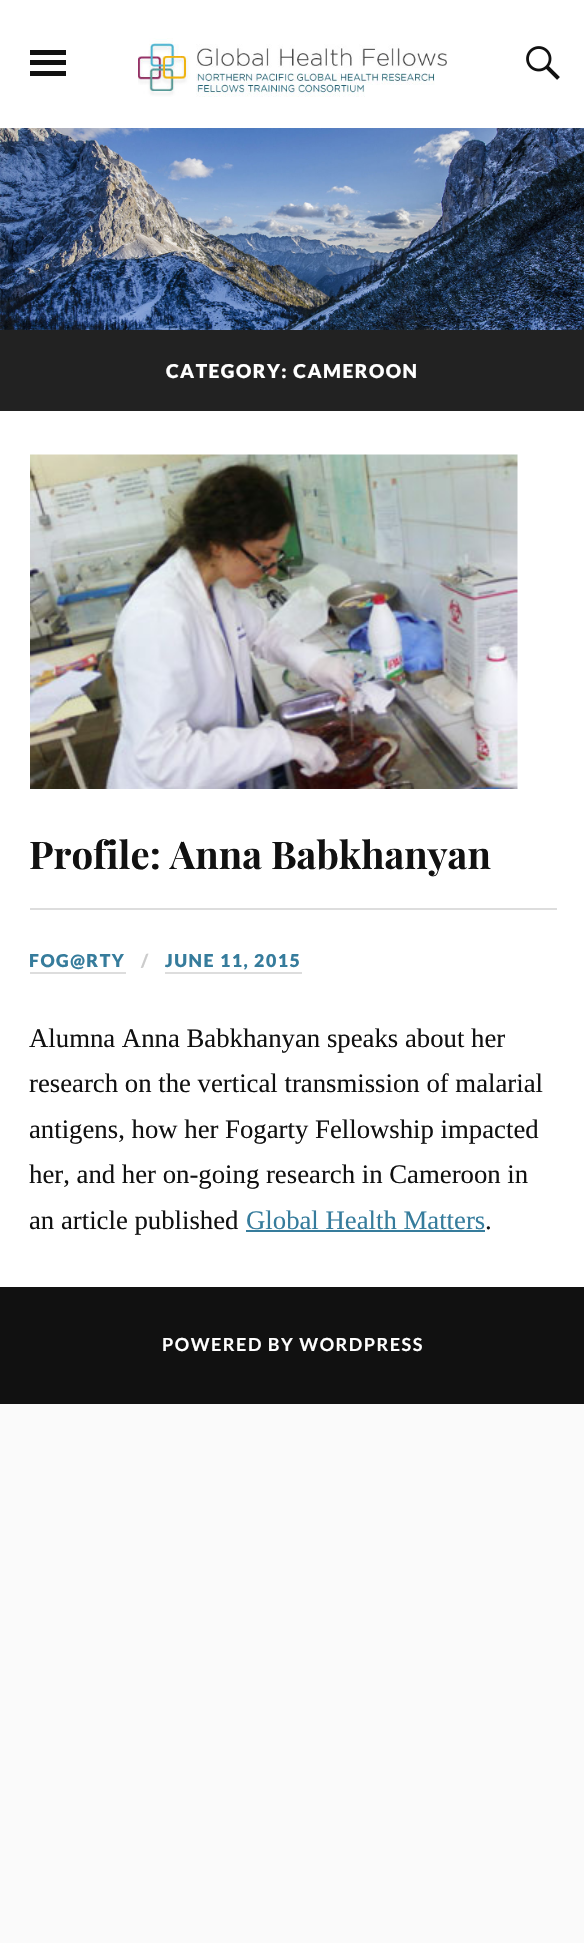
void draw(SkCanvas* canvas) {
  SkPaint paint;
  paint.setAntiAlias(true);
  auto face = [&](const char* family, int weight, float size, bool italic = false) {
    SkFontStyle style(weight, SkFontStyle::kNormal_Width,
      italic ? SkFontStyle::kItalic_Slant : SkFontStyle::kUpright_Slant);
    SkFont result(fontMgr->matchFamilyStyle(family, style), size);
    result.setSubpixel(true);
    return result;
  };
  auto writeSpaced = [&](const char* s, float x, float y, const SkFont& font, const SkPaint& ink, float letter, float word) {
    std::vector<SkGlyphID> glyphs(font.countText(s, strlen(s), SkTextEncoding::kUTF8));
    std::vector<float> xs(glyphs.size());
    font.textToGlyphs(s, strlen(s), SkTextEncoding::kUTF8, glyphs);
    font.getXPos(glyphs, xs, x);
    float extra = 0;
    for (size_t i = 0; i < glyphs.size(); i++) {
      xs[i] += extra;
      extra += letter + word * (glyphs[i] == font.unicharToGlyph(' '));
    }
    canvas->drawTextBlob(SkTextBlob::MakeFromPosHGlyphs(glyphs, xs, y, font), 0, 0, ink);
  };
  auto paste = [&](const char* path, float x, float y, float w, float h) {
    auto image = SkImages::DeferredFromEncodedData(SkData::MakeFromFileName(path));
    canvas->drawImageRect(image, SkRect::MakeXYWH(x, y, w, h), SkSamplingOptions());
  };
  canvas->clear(0xfffafafa);
  paint.setColor(0xffffffff);
  canvas->drawRect(SkRect::MakeXYWH(0, 0, 584, 128), paint);
  paste("img/1.png", 138, 38, 309, 59);
  {
    const struct { float x, y, w, h; SkColor color; } items[] = {
      {30, 50, 36, 5, 0xff111111},
      {30, 60, 36, 5, 0xff111111},
      {30, 71, 36, 5, 0xff111111},
    };
    for (auto [x, y, w, h, color] : items) {
      paint.setColor(color);
      canvas->drawRect(SkRect::MakeXYWH(x, y, w, h), paint);
    }
  }
  paste("img/2.png", 526, 46, 34, 34);
  paste("img/3.png", 0, 128, 584, 202);
  paint.setColor(0xff222222);
  canvas->drawRect(SkRect::MakeXYWH(0, 330, 584, 81), paint);
  paint.setColor(0xffffffff);
  canvas->drawRect(SkRect::MakeXYWH(0, 411, 584, 876), paint);
  paste("img/4.png", 30, 454, 488, 335);
  {
    const struct { float x, y, w, h; SkColor color; } items[] = {
      {30, 908, 527, 2, 0xffdddddd},
      {30, 972, 96, 2, 0xffdddddd},
      {165, 972, 137, 2, 0xffdddddd},
      {246, 1230, 239, 2, 0xff367c9c},
      {0, 1287, 584, 117, 0xff111111},
    };
    for (auto [x, y, w, h, color] : items) {
      paint.setColor(color);
      canvas->drawRect(SkRect::MakeXYWH(x, y, w, h), paint);
    }
  }
  auto f0 = face("Lato", 900, 19.1f);
  paint.setColor(0xffffffff);
  writeSpaced("CATEGORY: CAMEROON", 166, 378, f0, paint, 1.5f, 0);
  auto f1 = face("Playfair Display", 700, 38.25f);
  paint.setColor(0xff111111);
  canvas->drawString("Profile: Anna Babkhanyan", 29, 869, f1, paint);
  auto f2 = face("Lato", 900, 17.75f);
  paint.setColor(0xff367c9c);
  writeSpaced("FOG@RTY", 29, 967, f2, paint, 1.5f, 0);
  paint.setColor(0xffcccccc);
  writeSpaced("/", 141, 967, f2, paint, 1.5f, 0);
  paint.setColor(0xff367c9c);
  writeSpaced("JUNE 11, 2015", 165, 967, f2, paint, 1.5f, 0);
  auto f3 = face("Liberation Serif", 400, 26.75f);
  paint.setColor(0xff111111);
  {
    const struct { const char* s; float x, y; } items[] = {
      {"Alumna Anna Babkhanyan speaks about her", 29, 1047},
      {"research on the vertical transmission of malarial", 29, 1092},
      {"antigens, how her Fogarty Fellowship impacted", 29, 1138},
      {"her, and her on-going research in Cameroon in", 29, 1183},
      {"an article published", 29, 1229},
    };
    for (auto [s, x, y] : items) {
      canvas->drawString(s, x, y, f3, paint);
    }
  }
  paint.setColor(0xff367c9c);
  canvas->drawString("Global Health Matters", 246, 1229, f3, paint);
  paint.setColor(0xff111111);
  canvas->drawString(".", 485, 1229, f3, paint);
  auto f4 = face("Lato", 700, 18);
  paint.setColor(0xffffffff);
  writeSpaced("POWERED BY WORDPRESS", 162, 1351, f4, paint, 1.5f, 0);
}
